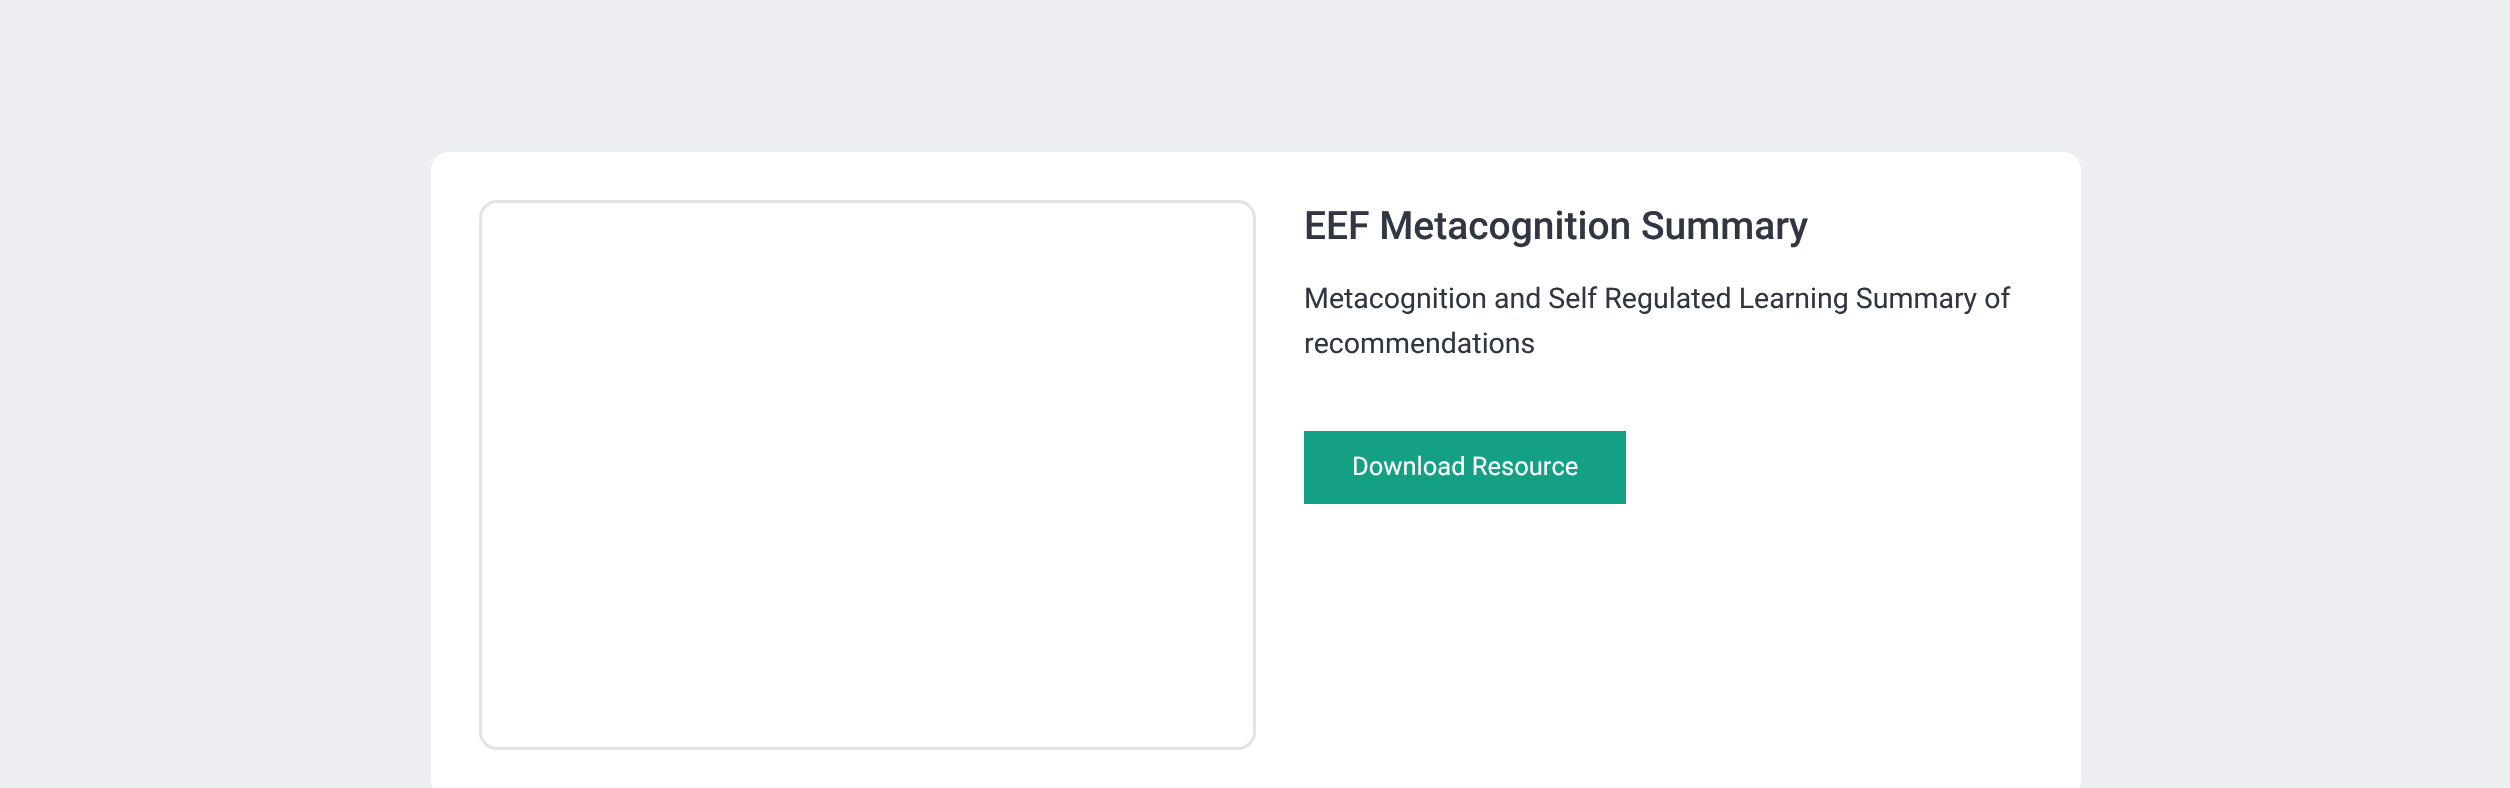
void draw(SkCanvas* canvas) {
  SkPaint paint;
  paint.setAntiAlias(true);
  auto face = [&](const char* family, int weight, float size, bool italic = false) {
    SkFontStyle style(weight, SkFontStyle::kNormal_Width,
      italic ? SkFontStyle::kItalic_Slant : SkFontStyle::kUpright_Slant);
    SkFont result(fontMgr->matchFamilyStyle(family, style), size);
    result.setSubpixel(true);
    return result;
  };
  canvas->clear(0xffedeff3);
  paint.setColor(0xffffffff);
  canvas->drawRoundRect(SkRect::MakeXYWH(431, 152, 1650, 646), 18, 18, paint);
  paint.setStroke(true);
  paint.setStrokeWidth(3);
  paint.setColor(0xffe3e3e3);
  canvas->drawRoundRect(SkRect::MakeXYWH(480.5f, 201.5f, 774, 547), 16.5f, 16.5f, paint);
  paint.setStroke(false);
  paint.setColor(0xff13a085);
  canvas->drawRect(SkRect::MakeXYWH(1304, 431, 322, 73), paint);
  auto f0 = face("Roboto", 500, 39);
  paint.setColor(0xff303643);
  canvas->drawString("EEF Metacognition Summary", 1304, 239, f0, paint);
  auto f1 = face("Roboto", 400, 28.5f);
  canvas->drawString("Metacognition and Self Regulated Learning Summary of", 1304, 308, f1, paint);
  canvas->drawString("recommendations", 1304, 353, f1, paint);
  auto f2 = face("Roboto", 400, 25.5f);
  paint.setColor(0xffffffff);
  canvas->drawString("Download Resource", 1352, 475, f2, paint);
}
